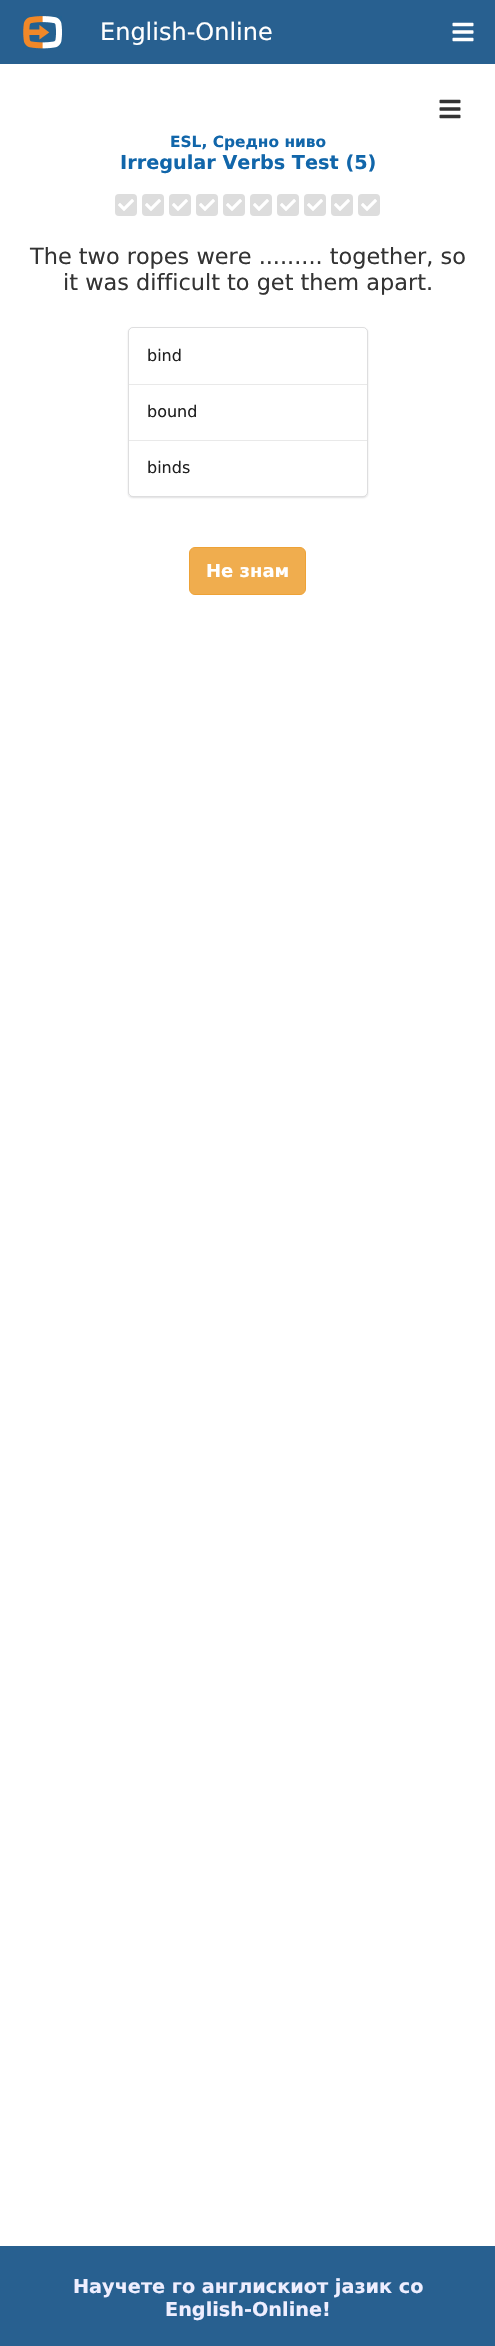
void draw(SkCanvas* canvas) {
  SkPaint paint;
  paint.setAntiAlias(true);
  auto face = [&](const char* family, int weight, float size, bool italic = false) {
    SkFontStyle style(weight, SkFontStyle::kNormal_Width,
      italic ? SkFontStyle::kItalic_Slant : SkFontStyle::kUpright_Slant);
    SkFont result(fontMgr->matchFamilyStyle(family, style), size);
    result.setSubpixel(true);
    return result;
  };
  auto paste = [&](const char* path, float x, float y, float w, float h) {
    auto image = SkImages::DeferredFromEncodedData(SkData::MakeFromFileName(path));
    canvas->drawImageRect(image, SkRect::MakeXYWH(x, y, w, h), SkSamplingOptions());
  };
  canvas->clear(0xffffffff);
  paint.setColor(0xff286090);
  canvas->drawRect(SkRect::MakeXYWH(0, 0, 495, 64), paint);
  paste("img/1.png", 23, 16, 39, 33);
  paste("img/2.png", 452, 22, 22, 20);
  paste("img/3.png", 439, 99, 22, 20);
  paint.setColor(0xffdddddd);
  canvas->drawRoundRect(SkRect::MakeXYWH(115, 194, 22, 22), 4, 4, paint);
  paste("img/4.png", 118, 199, 16, 12);
  canvas->drawRoundRect(SkRect::MakeXYWH(142, 194, 22, 22), 4, 4, paint);
  paste("img/4.png", 145, 199, 16, 12);
  canvas->drawRoundRect(SkRect::MakeXYWH(169, 194, 22, 22), 4, 4, paint);
  paste("img/4.png", 172, 199, 16, 12);
  canvas->drawRoundRect(SkRect::MakeXYWH(196, 194, 22, 22), 4, 4, paint);
  paste("img/4.png", 199, 199, 16, 12);
  canvas->drawRoundRect(SkRect::MakeXYWH(223, 194, 22, 22), 4, 4, paint);
  paste("img/4.png", 226, 199, 16, 12);
  canvas->drawRoundRect(SkRect::MakeXYWH(250, 194, 22, 22), 4, 4, paint);
  paste("img/5.png", 253, 199, 16, 12);
  canvas->drawRoundRect(SkRect::MakeXYWH(277, 194, 22, 22), 4, 4, paint);
  paste("img/6.png", 280, 199, 16, 12);
  canvas->drawRoundRect(SkRect::MakeXYWH(304, 194, 22, 22), 4, 4, paint);
  paste("img/6.png", 307, 199, 16, 12);
  canvas->drawRoundRect(SkRect::MakeXYWH(331, 194, 22, 22), 4, 4, paint);
  paste("img/6.png", 334, 199, 16, 12);
  canvas->drawRoundRect(SkRect::MakeXYWH(358, 194, 22, 22), 4, 4, paint);
  paste("img/6.png", 361, 199, 16, 12);
  paint.setColor(0x26222426);
  paint.setMaskFilter(SkMaskFilter::MakeBlur(kNormal_SkBlurStyle, 1));
  canvas->drawRoundRect(SkRect::MakeXYWH(128, 328, 240, 170), 5, 5, paint);
  paint.setMaskFilter(nullptr);
  paint.setColor(0xffffffff);
  canvas->drawRoundRect(SkRect::MakeXYWH(128, 327, 240, 170), 5, 5, paint);
  paint.setStroke(true);
  paint.setStrokeWidth(1);
  paint.setColor(0x26222426);
  canvas->drawRoundRect(SkRect::MakeXYWH(128.5f, 327.5f, 239, 169), 4.5f, 4.5f, paint);
  paint.setStroke(false);
  paint.setColor(0xffe9e9e9);
  canvas->drawRect(SkRect::MakeXYWH(129, 384, 238, 1), paint);
  canvas->drawRect(SkRect::MakeXYWH(129, 440, 238, 1), paint);
  paint.setColor(0xfff0ad4e);
  canvas->drawRoundRect(SkRect::MakeXYWH(189.5f, 547.5f, 116, 47), 5.5f, 5.5f, paint);
  paint.setStroke(true);
  paint.setColor(0xffeea236);
  canvas->drawRoundRect(SkRect::MakeXYWH(189.5f, 547.5f, 116, 47), 5.5f, 5.5f, paint);
  paint.setStroke(false);
  paint.setColor(0xff286090);
  canvas->drawRect(SkRect::MakeXYWH(0, 2246, 495, 100), paint);
  auto f0 = face("DejaVu Sans", 400, 24);
  paint.setColor(0xffffffff);
  canvas->drawString("English-Online", 100, 40, f0, paint);
  auto f1 = face("DejaVu Sans", 700, 15.4f);
  paint.setColor(0xff1166aa);
  canvas->drawString("ESL, Средно ниво", 170, 147, f1, paint);
  auto f2 = face("DejaVu Sans", 700, 19.25f);
  canvas->drawString("Irregular Verbs Test (5)", 120, 169, f2, paint);
  auto f3 = face("DejaVu Sans", 400, 22.4f);
  paint.setColor(0xff333333);
  canvas->drawString("The two ropes were ......... together, so", 30, 264, f3, paint);
  canvas->drawString("it was difficult to get them apart.", 63, 290, f3, paint);
  auto f4 = face("DejaVu Sans", 400, 16);
  paint.setColor(0xff212121);
  {
    const struct { const char* s; float x, y; } items[] = {
      {"bind", 147, 361},
      {"bound", 147, 417},
      {"binds", 147, 473},
    };
    for (auto [s, x, y] : items) {
      canvas->drawString(s, x, y, f4, paint);
    }
  }
  auto f5 = face("DejaVu Sans", 700, 18);
  paint.setColor(0xffffffff);
  canvas->drawString("Не знам", 206, 577, f5, paint);
  paint.setColor(0xffeeeeff);
  canvas->drawString("Научете го англискиот јазик со", 73, 2293, f2, paint);
  canvas->drawString("English-Online!", 165, 2316, f2, paint);
}
